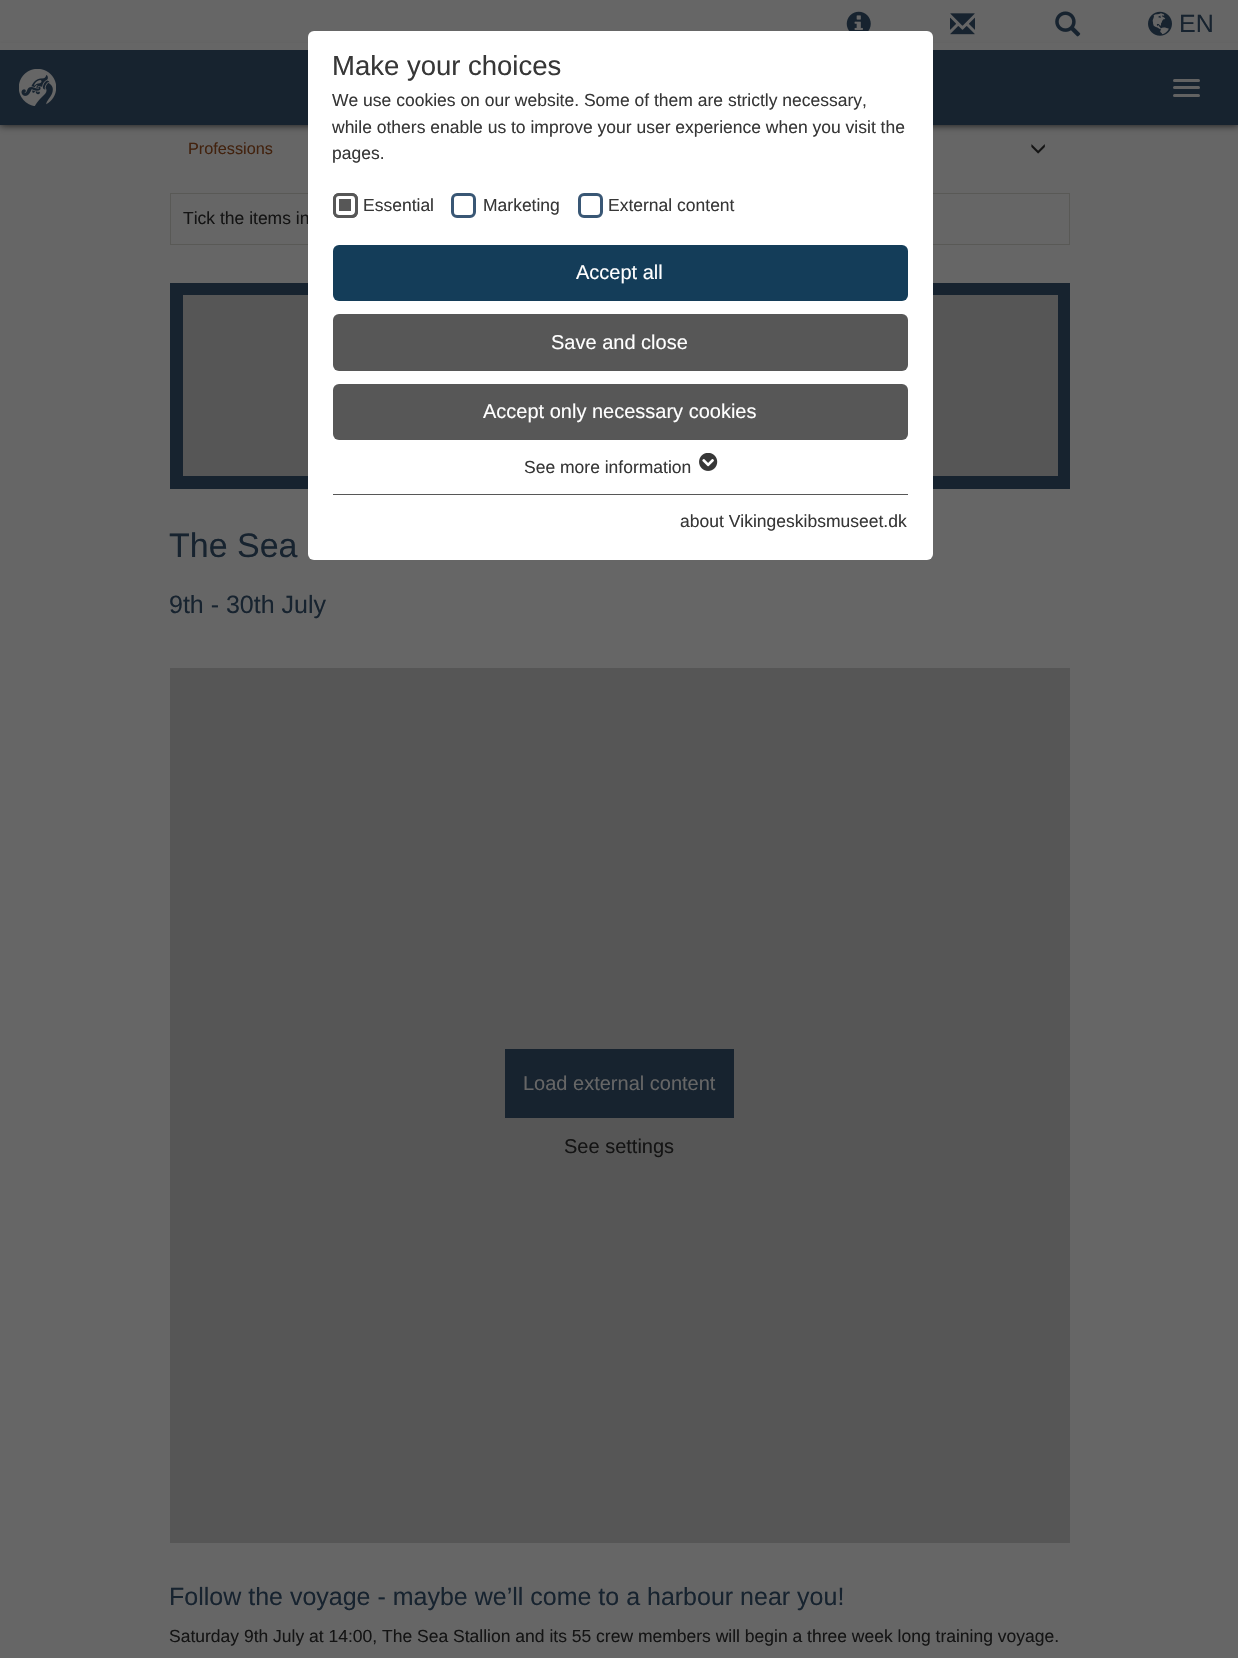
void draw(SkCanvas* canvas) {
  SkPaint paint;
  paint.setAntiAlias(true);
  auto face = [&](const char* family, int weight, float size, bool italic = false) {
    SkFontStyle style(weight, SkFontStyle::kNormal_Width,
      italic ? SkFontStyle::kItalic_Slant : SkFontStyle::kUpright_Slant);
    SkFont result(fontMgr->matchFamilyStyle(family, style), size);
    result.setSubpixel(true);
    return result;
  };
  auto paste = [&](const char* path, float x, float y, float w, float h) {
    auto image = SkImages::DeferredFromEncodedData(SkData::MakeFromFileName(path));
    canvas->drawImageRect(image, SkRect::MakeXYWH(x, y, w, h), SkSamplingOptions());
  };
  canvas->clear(0xff666666);
  paint.setColor(0xff141414);
  paint.setMaskFilter(SkMaskFilter::MakeBlur(kNormal_SkBlurStyle, 4));
  canvas->drawRect(SkRect::MakeXYWH(0, 50, 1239, 75), paint);
  paint.setMaskFilter(nullptr);
  paint.setColor(0xff17232f);
  canvas->drawRect(SkRect::MakeXYWH(0, 50, 1238, 75), paint);
  paint.setColor(0xff666666);
  canvas->drawRect(SkRect::MakeXYWH(0, 43, 1238, 7), paint);
  paste("img/1.png", 846, 11, 25, 20);
  paste("img/2.png", 950, 13, 25, 22);
  paste("img/3.png", 1055, 11, 26, 26);
  paste("img/4.png", 1148, 11, 24, 25);
  paste("img/5.png", 19, 69, 37, 37);
  paint.setColor(0xff626262);
  canvas->drawRoundRect(SkRect::MakeXYWH(1173, 79, 27, 3), 1.5f, 1.5f, paint);
  canvas->drawRoundRect(SkRect::MakeXYWH(1173, 86, 27, 3), 1.5f, 1.5f, paint);
  canvas->drawRoundRect(SkRect::MakeXYWH(1173, 94, 27, 3), 1.5f, 1.5f, paint);
  paste("img/6.png", 1031, 144, 14, 10);
  paint.setStroke(true);
  paint.setStrokeWidth(1);
  paint.setColor(0xff595956);
  canvas->drawRect(SkRect::MakeXYWH(170.5f, 193.5f, 899, 51), paint);
  paint.setStroke(false);
  {
    const struct { float x, y, w, h; SkColor color; } items[] = {
      {170, 283, 900, 206, 0xff17232f},
      {183, 295, 875, 181, 0xff565656},
      {170, 668, 900, 875, 0xff565656},
      {505, 1049, 229, 69, 0xff17232f},
    };
    for (auto [x, y, w, h, color] : items) {
      paint.setColor(color);
      canvas->drawRect(SkRect::MakeXYWH(x, y, w, h), paint);
    }
  }
  auto f0 = face("Liberation Sans", 400, 25);
  canvas->drawString("EN", 1179, 32, f0, paint);
  auto f1 = face("Liberation Sans", 400, 16.25f);
  paint.setColor(0xff42220e);
  canvas->drawString("Professions", 188, 154, f1, paint);
  auto f2 = face("Liberation Sans", 400, 17.5f);
  paint.setColor(0xff141414);
  canvas->drawString("Tick the items in", 183, 224, f2, paint);
  auto f3 = face("Liberation Sans", 400, 34);
  paint.setColor(0xff17232f);
  canvas->drawString("The Sea", 169, 557, f3, paint);
  canvas->drawString("9th - 30th July", 169, 613, f0, paint);
  auto f4 = face("Liberation Sans", 400, 20);
  paint.setColor(0xff666666);
  canvas->drawString("Load external content", 523, 1090, f4, paint);
  paint.setColor(0xff141414);
  canvas->drawString("See settings", 564, 1153, f4, paint);
  paint.setColor(0xff17232f);
  canvas->drawString("Follow the voyage - maybe we’ll come to a harbour near you!", 169, 1605, f0, paint);
  paint.setColor(0xff141414);
  canvas->drawString("Saturday 9th July at 14:00, The Sea Stallion and its 55 crew members will begin a three week long training voyage.", 169, 1642, f2, paint);
  paint.setColor(0xffffffff);
  canvas->drawRoundRect(SkRect::MakeXYWH(308, 31, 625, 529), 6, 6, paint);
  auto f5 = face("Liberation Sans", 400, 27.5f);
  paint.setColor(0xff373737);
  canvas->drawString("Make your choices", 332, 75, f5, paint);
  {
    const struct { const char* s; float x, y; } items[] = {
      {"We use cookies on our website. Some of them are strictly necessary,", 332, 106},
      {"while others enable us to improve your user experience when you visit the", 332, 133},
      {"pages.", 332, 159},
    };
    for (auto [s, x, y] : items) {
      canvas->drawString(s, x, y, f2, paint);
    }
  }
  paint.setColor(0xff575757);
  canvas->drawRoundRect(SkRect::MakeXYWH(333, 193, 25, 25), 6, 6, paint);
  paint.setStroke(true);
  paint.setStrokeWidth(4);
  paint.setColor(0xffffffff);
  canvas->drawRoundRect(SkRect::MakeXYWH(337, 197, 16, 16), 2, 2, paint);
  paint.setStrokeWidth(3);
  paint.setColor(0xff575757);
  canvas->drawRoundRect(SkRect::MakeXYWH(334.5f, 194.5f, 22, 22), 4.5f, 4.5f, paint);
  paint.setStroke(false);
  paint.setColor(0xff373737);
  canvas->drawString("Essential", 363, 211, f2, paint);
  paint.setStroke(true);
  paint.setColor(0xff395775);
  canvas->drawRoundRect(SkRect::MakeXYWH(452.5f, 194.5f, 22, 22), 4.5f, 4.5f, paint);
  paint.setStroke(false);
  paint.setColor(0xff373737);
  canvas->drawString("Marketing", 483, 211, f2, paint);
  paint.setStroke(true);
  paint.setColor(0xff395775);
  canvas->drawRoundRect(SkRect::MakeXYWH(579.5f, 194.5f, 22, 22), 4.5f, 4.5f, paint);
  paint.setStroke(false);
  paint.setColor(0xff373737);
  canvas->drawString("External content", 608, 211, f2, paint);
  paint.setColor(0xff143d59);
  canvas->drawRoundRect(SkRect::MakeXYWH(333, 245, 575, 56), 6, 6, paint);
  paint.setColor(0xffffffff);
  canvas->drawString("Accept all", 576, 279, f4, paint);
  paint.setColor(0xff575757);
  canvas->drawRoundRect(SkRect::MakeXYWH(333, 314, 575, 57), 6, 6, paint);
  paint.setColor(0xffffffff);
  canvas->drawString("Save and close", 551, 349, f4, paint);
  paint.setColor(0xff575757);
  canvas->drawRoundRect(SkRect::MakeXYWH(333, 384, 575, 56), 6, 6, paint);
  paint.setColor(0xffffffff);
  canvas->drawString("Accept only necessary cookies", 483, 418, f4, paint);
  paint.setColor(0xff373737);
  canvas->drawString("See more information", 524, 473, f2, paint);
  paste("img/7.png", 699, 453, 19, 18);
  paint.setColor(0xff575757);
  canvas->drawRect(SkRect::MakeXYWH(333, 494, 575, 1), paint);
  paint.setColor(0xff373737);
  canvas->drawString("about Vikingeskibsmuseet.dk", 680, 527, f2, paint);
}
